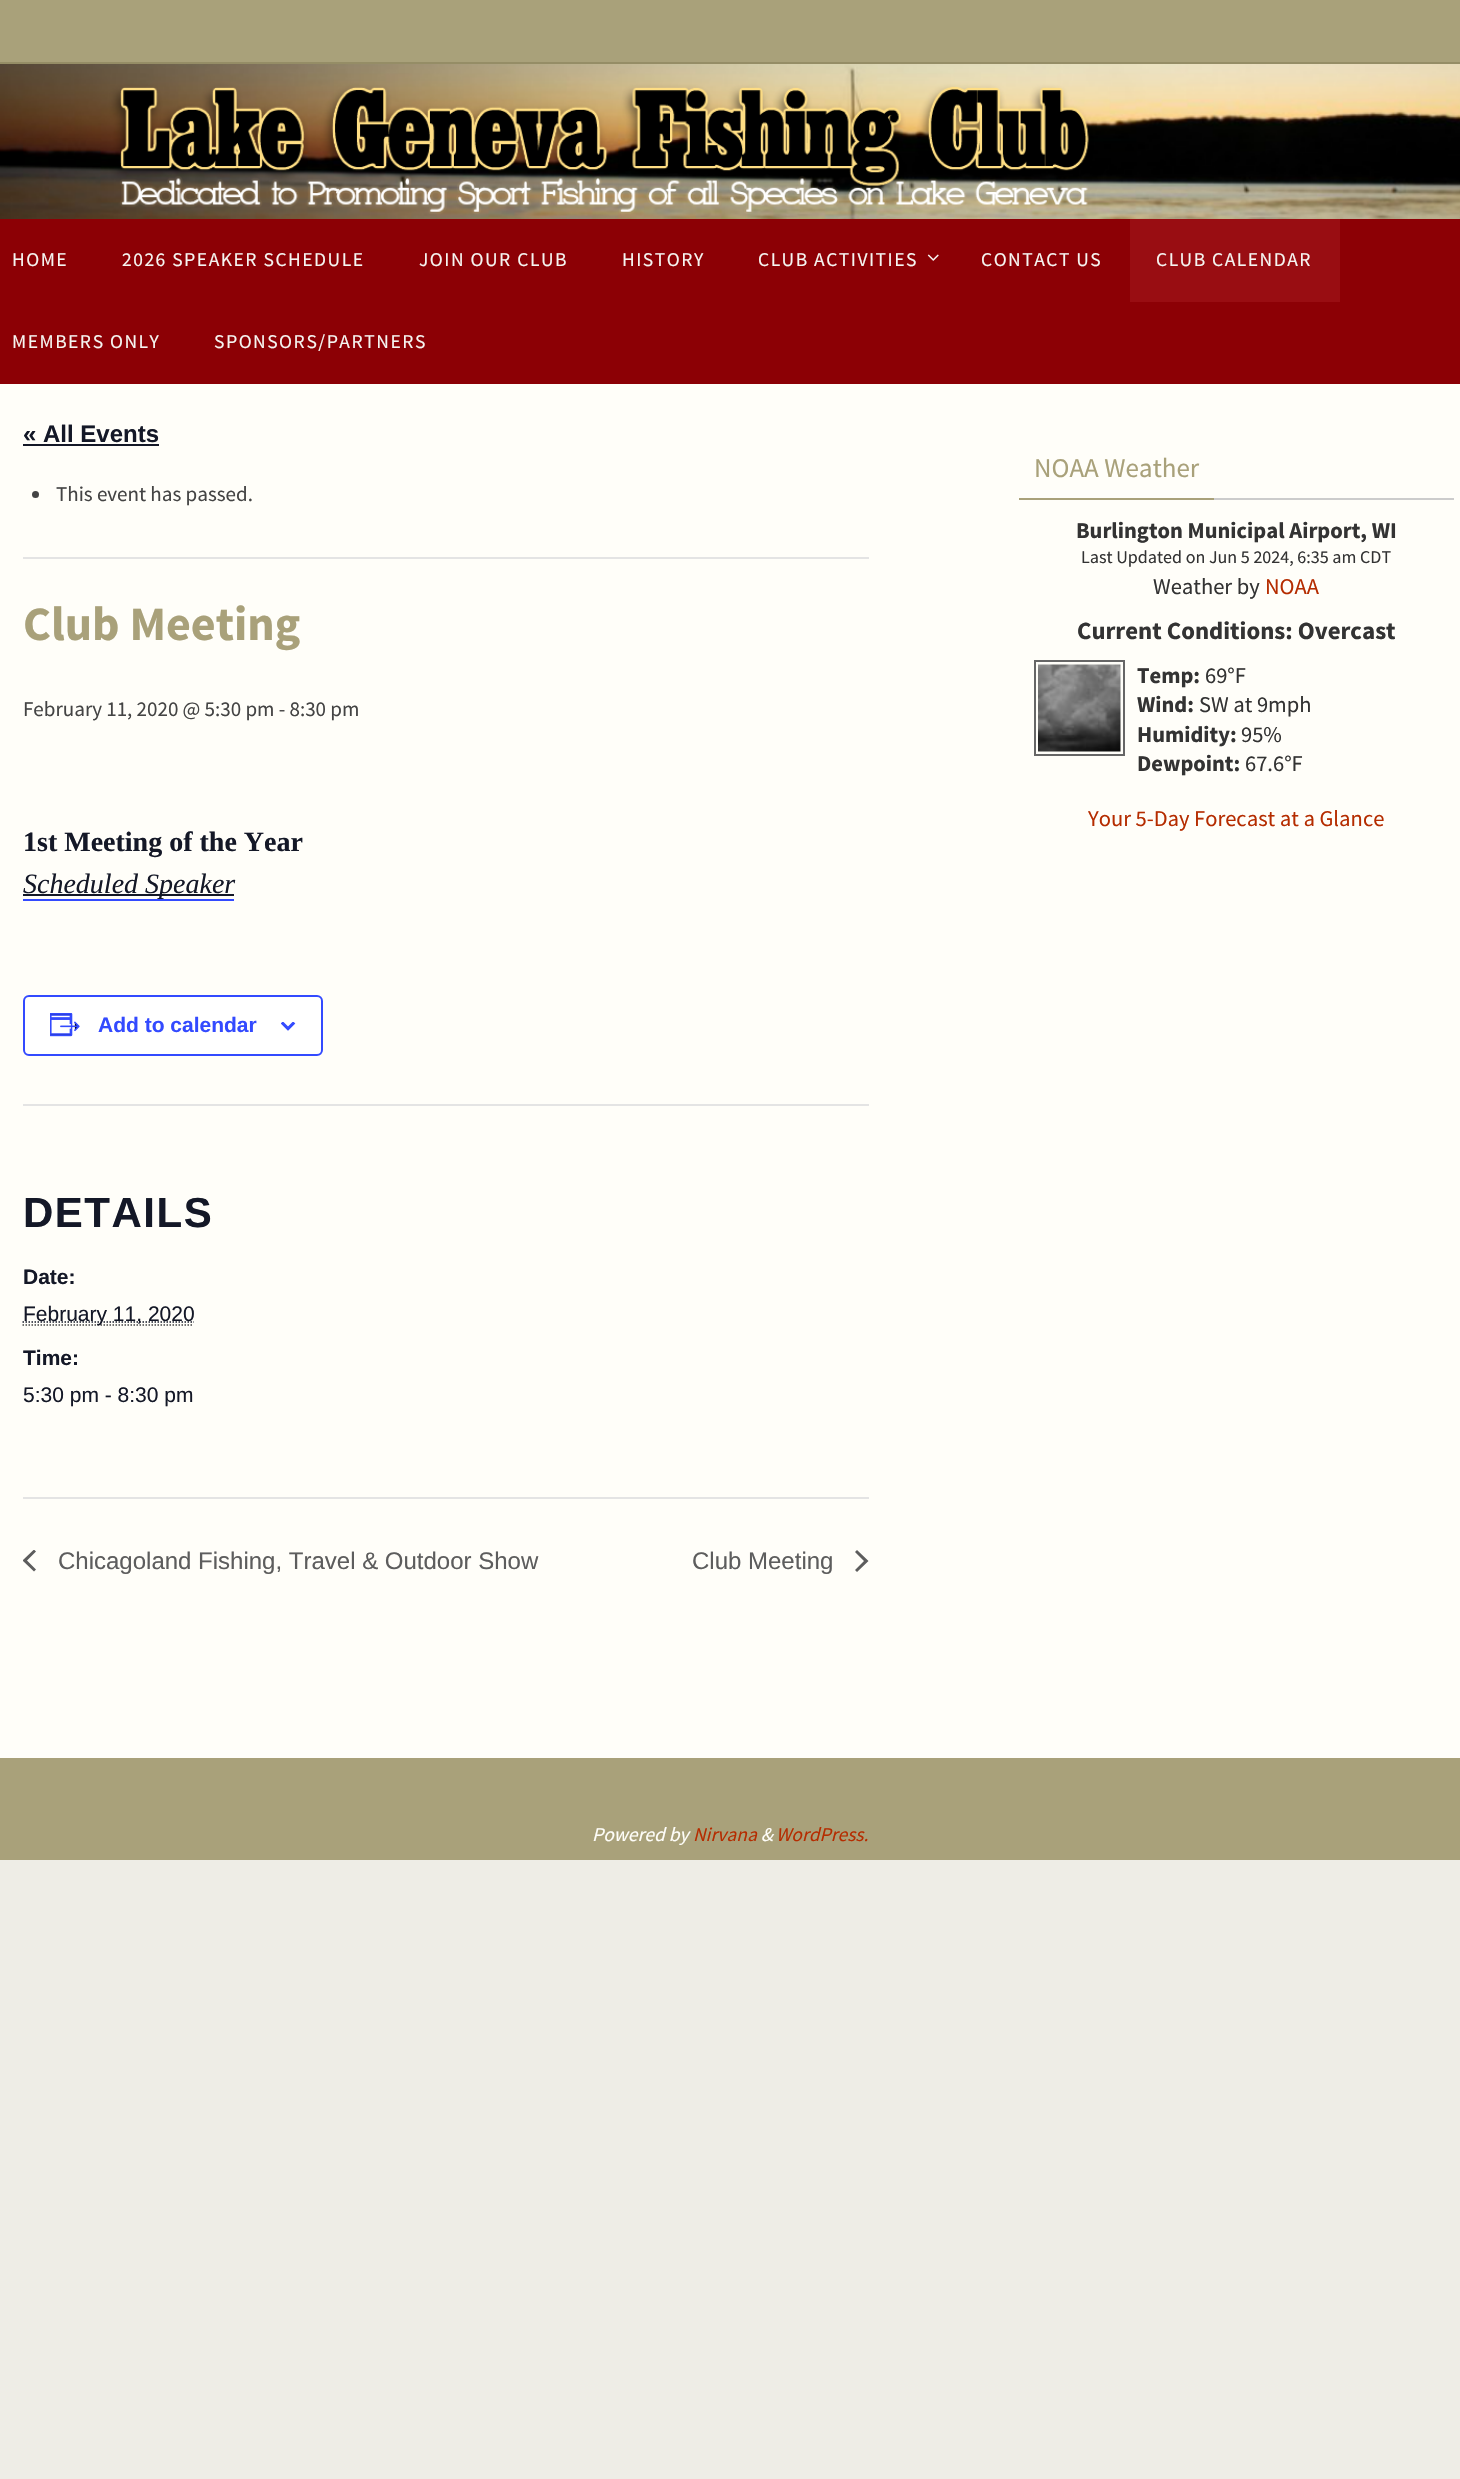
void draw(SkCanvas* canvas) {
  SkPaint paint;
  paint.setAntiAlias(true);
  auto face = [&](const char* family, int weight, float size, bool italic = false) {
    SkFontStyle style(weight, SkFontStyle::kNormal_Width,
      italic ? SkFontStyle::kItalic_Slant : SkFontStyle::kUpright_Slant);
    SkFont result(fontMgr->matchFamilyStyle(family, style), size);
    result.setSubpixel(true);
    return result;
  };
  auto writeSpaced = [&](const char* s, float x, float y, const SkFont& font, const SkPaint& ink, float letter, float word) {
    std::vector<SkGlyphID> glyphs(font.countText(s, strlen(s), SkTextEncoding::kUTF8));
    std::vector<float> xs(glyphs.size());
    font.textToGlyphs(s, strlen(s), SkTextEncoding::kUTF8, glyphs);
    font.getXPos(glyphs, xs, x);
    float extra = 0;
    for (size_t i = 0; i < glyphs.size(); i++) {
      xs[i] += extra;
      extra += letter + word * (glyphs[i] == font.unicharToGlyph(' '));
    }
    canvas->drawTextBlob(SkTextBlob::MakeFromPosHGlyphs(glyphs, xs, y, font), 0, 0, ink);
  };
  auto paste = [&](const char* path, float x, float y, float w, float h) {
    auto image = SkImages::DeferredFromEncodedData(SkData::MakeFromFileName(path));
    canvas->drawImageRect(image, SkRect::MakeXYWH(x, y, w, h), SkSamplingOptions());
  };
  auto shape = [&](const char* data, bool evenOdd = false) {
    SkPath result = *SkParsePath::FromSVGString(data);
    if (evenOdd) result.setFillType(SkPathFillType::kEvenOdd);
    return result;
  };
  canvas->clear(0xffeeede6);
  paint.setColor(0xffa9a17a);
  canvas->drawRect(SkRect::MakeXYWH(0, 0, 1460, 62), paint);
  paint.setColor(0xff958d66);
  canvas->drawRect(SkRect::MakeXYWH(0, 62, 1460, 2), paint);
  paste("img/1.png", 0, 64, 1460, 155);
  paint.setColor(0xff8c0005);
  canvas->drawRect(SkRect::MakeXYWH(0, 219, 1460, 165), paint);
  paste("img/2.png", 927, 254, 12, 7);
  {
    const struct { float x, y, w, h; SkColor color; } items[] = {
      {1130, 219, 210, 83, 0xff990d12},
      {0, 384, 1460, 1374, 0xfffffef9},
      {23, 444, 136, 2, 0xff141827},
      {23, 557, 846, 2, 0xffe4e4e4},
    };
    for (auto [x, y, w, h, color] : items) {
      paint.setColor(color);
      canvas->drawRect(SkRect::MakeXYWH(x, y, w, h), paint);
    }
  }
  paint.setColor(0xff444444);
  canvas->drawCircle(35.5f, 494.5f, 3.5f, paint);
  paint.setColor(0xff334aff);
  canvas->drawRect(SkRect::MakeXYWH(23, 899, 211, 2), paint);
  paint.setColor(0xff141827);
  canvas->drawRect(SkRect::MakeXYWH(23, 894, 211, 2), paint);
  paint.setColor(0xffffffff);
  canvas->drawRoundRect(SkRect::MakeXYWH(24, 996, 298, 59), 5, 5, paint);
  paint.setStroke(true);
  paint.setStrokeWidth(2);
  paint.setColor(0xff334aff);
  canvas->drawRoundRect(SkRect::MakeXYWH(24, 996, 298, 59), 5, 5, paint);
  paste("img/3.png", 50, 1013, 30, 24);
  paste("img/4.png", 281, 1022, 15, 9);
  paint.setStroke(false);
  paint.setColor(0xffe4e4e4);
  canvas->drawRect(SkRect::MakeXYWH(23, 1104, 846, 2), paint);
  paint.setStroke(true);
  paint.setStrokeWidth(1.5f);
  paint.setColor(0xff444444);
  paint.setPathEffect(SkDashPathEffect::Make({{1.5f, 1.5f}}, 0));
  canvas->drawPath(shape("M22.5 1325H193.5"), paint);
  paint.setPathEffect(nullptr);
  paint.setColor(0xff141827);
  paint.setPathEffect(SkDashPathEffect::Make({{1.5f, 1.5f}}, 0));
  canvas->drawPath(shape("M22.5 1322H194"), paint);
  paint.setPathEffect(nullptr);
  paint.setStroke(false);
  paint.setColor(0xffe4e4e4);
  canvas->drawRect(SkRect::MakeXYWH(23, 1497, 846, 2), paint);
  canvas->save();
  canvas->clipRect(SkRect::MakeXYWH(23, 1550, 13, 22));
  paint.setColor(0xff5d5d5d);
  canvas->drawPath(shape("M36 1569.5L34 1571.5L22.5 1560.5L34 1549.5L36 1551.5L27 1560.5Z"), paint);
  canvas->restore();
  canvas->drawPath(shape("M855 1552L857 1550L868.5 1561L857 1572L855 1570L864 1561Z"), paint);
  paint.setColor(0xffcccccc);
  canvas->drawRect(SkRect::MakeXYWH(1214, 498, 240, 2), paint);
  paint.setColor(0xffa9a17a);
  canvas->drawRect(SkRect::MakeXYWH(1019, 498, 195, 2), paint);
  paint.setStroke(true);
  paint.setStrokeWidth(2);
  paint.setColor(0xff666666);
  canvas->drawRect(SkRect::MakeXYWH(1035, 661, 89, 94), paint);
  paste("img/5.png", 1038, 664, 83, 88);
  paint.setStroke(false);
  paint.setColor(0xffa9a17a);
  canvas->drawRect(SkRect::MakeXYWH(0, 1758, 1460, 102), paint);
  auto f0 = face("Source Sans Pro", 400, 19.5f);
  paint.setColor(0xfff6f5f1);
  {
    const struct { const char* s; float x, y; } items[] = {
      {"HOME", 12, 266},
      {"2026 SPEAKER SCHEDULE", 122, 266},
      {"JOIN OUR CLUB", 419, 266},
      {"HISTORY", 622, 266},
      {"CLUB ACTIVITIES", 758, 266},
      {"CONTACT US", 981, 266},
      {"CLUB CALENDAR", 1156, 266},
      {"MEMBERS ONLY", 12, 348},
      {"SPONSORS/PARTNERS", 214, 348},
    };
    for (auto [s, x, y] : items) {
      writeSpaced(s, x, y, f0, paint, 1.5f, 0);
    }
  }
  auto f1 = face("Liberation Sans", 700, 24);
  paint.setColor(0xff141827);
  canvas->drawString("« All Events", 23, 442, f1, paint);
  auto f2 = face("Source Sans Pro", 400, 21);
  paint.setColor(0xff444444);
  canvas->drawString("This event has passed.", 56, 501, f2, paint);
  auto f3 = face("Source Sans Pro", 700, 48);
  paint.setColor(0xffa9a17a);
  canvas->drawString("Club Meeting", 23, 640, f3, paint);
  paint.setColor(0xff444444);
  canvas->drawString("February 11, 2020 @ 5:30 pm - 8:30 pm", 23, 716, f2, paint);
  auto f4 = face("Liberation Serif", 700, 28);
  paint.setColor(0xff141827);
  canvas->drawString("1st Meeting of the Year", 23, 851, f4, paint);
  auto f5 = face("Liberation Serif", 400, 28, true);
  canvas->drawString("Scheduled Speaker", 23, 893, f5, paint);
  auto f6 = face("Liberation Sans", 700, 21);
  paint.setColor(0xff334aff);
  canvas->drawString("Add to calendar", 98, 1032, f6, paint);
  auto f7 = face("Liberation Sans", 700, 42);
  paint.setColor(0xff141827);
  writeSpaced("DETAILS", 23, 1227, f7, paint, 1.5f, 0);
  canvas->drawString("Date:", 23, 1284, f6, paint);
  auto f8 = face("Liberation Sans", 400, 21);
  canvas->drawString("February 11, 2020", 23, 1321, f8, paint);
  canvas->save();
  canvas->clipRect(SkRect::MakeXYWH(23, 773, 846, 670));
  canvas->drawString("Time:", 23, 1365, f6, paint);
  canvas->restore();
  canvas->drawString("5:30 pm - 8:30 pm", 23, 1402, f8, paint);
  auto f9 = face("Liberation Sans", 400, 24);
  paint.setColor(0xff5d5d5d);
  canvas->drawString("Chicagoland Fishing, Travel & Outdoor Show", 58, 1569, f9, paint);
  canvas->drawString("Club Meeting", 692, 1569, f9, paint);
  auto f10 = face("Source Sans Pro", 400, 27);
  paint.setColor(0xffa9a17a);
  canvas->drawString("NOAA Weather", 1034, 477, f10, paint);
  auto f11 = face("Source Sans Pro", 700, 22.5f);
  paint.setColor(0xff333333);
  canvas->drawString("Burlington Municipal Airport, WI", 1076, 538, f11, paint);
  auto f12 = face("Source Sans Pro", 400, 18);
  canvas->drawString("Last Updated on Jun 5 2024, 6:35 am CDT", 1081, 563, f12, paint);
  auto f13 = face("Source Sans Pro", 400, 22.5f);
  canvas->drawString("Weather by", 1153, 594, f13, paint);
  paint.setColor(0xffb52c00);
  canvas->drawString("NOAA", 1265, 594, f13, paint);
  auto f14 = face("Source Sans Pro", 700, 24.75f);
  paint.setColor(0xff333333);
  canvas->drawString("Current Conditions: Overcast", 1077, 639, f14, paint);
  canvas->drawString("Temp:", 1137, 683, f11, paint);
  canvas->drawString("69°F", 1205, 683, f13, paint);
  canvas->drawString("Wind:", 1137, 712, f11, paint);
  canvas->drawString("SW at 9mph", 1199, 712, f13, paint);
  canvas->drawString("Humidity:", 1137, 742, f11, paint);
  canvas->drawString("95%", 1241, 742, f13, paint);
  canvas->drawString("Dewpoint:", 1137, 771, f11, paint);
  canvas->drawString("67.6°F", 1245, 771, f13, paint);
  paint.setColor(0xffb52c00);
  canvas->drawString("Your 5-Day Forecast at a Glance", 1088, 826, f13, paint);
  auto f15 = face("Source Sans Pro", 400, 19.5f, true);
  paint.setColor(0xfffffef9);
  canvas->drawString("Powered by", 592, 1841, f15, paint);
  paint.setColor(0xffb52c00);
  canvas->drawString("Nirvana", 693, 1841, f15, paint);
  paint.setColor(0xfffffef9);
  canvas->drawString("&", 761, 1841, f15, paint);
  paint.setColor(0xffb52c00);
  canvas->drawString("WordPress.", 776, 1841, f15, paint);
}
